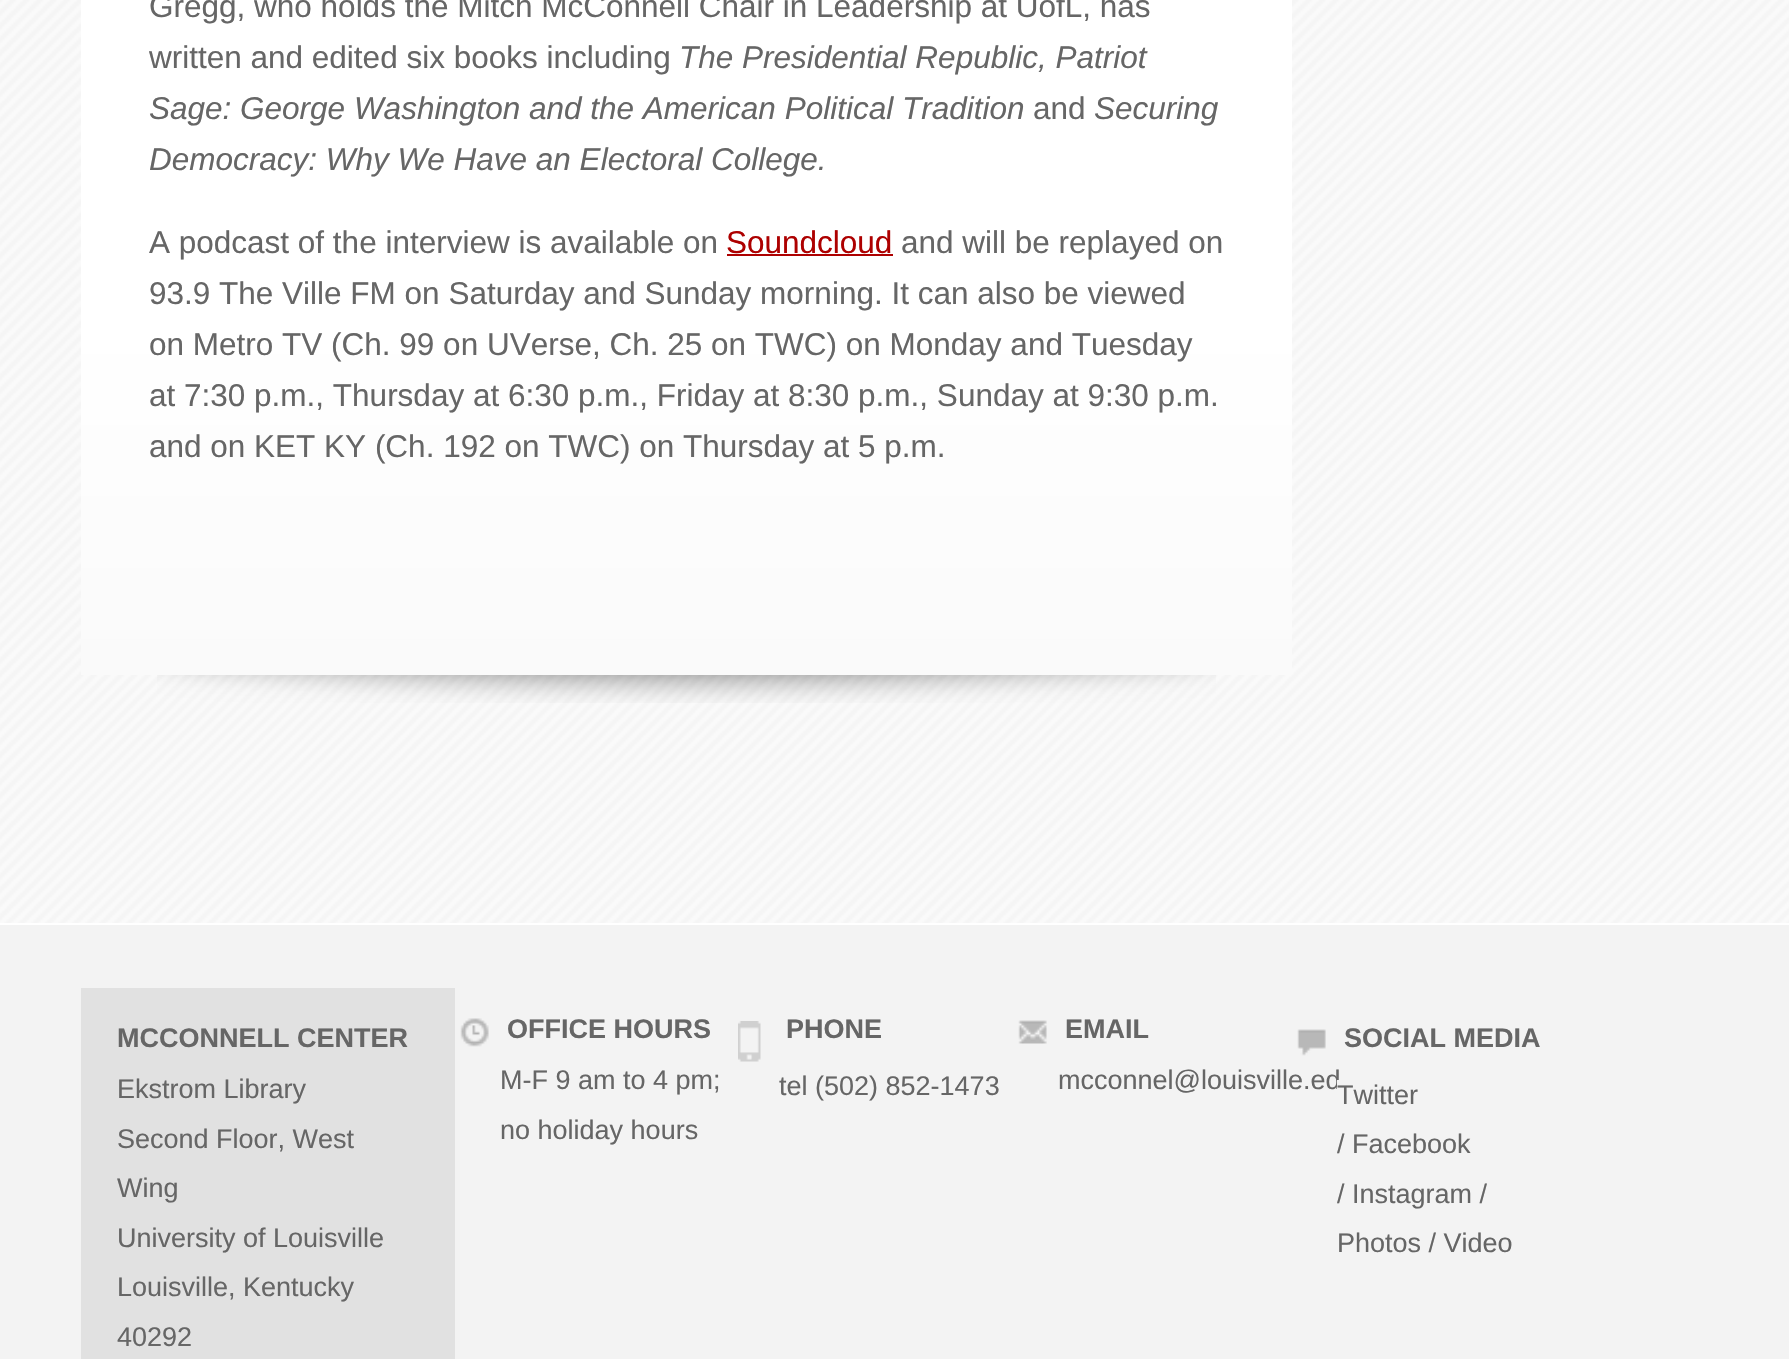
void draw(SkCanvas* canvas) {
  SkPaint paint;
  paint.setAntiAlias(true);
  auto face = [&](const char* family, int weight, float size, bool italic = false) {
    SkFontStyle style(weight, SkFontStyle::kNormal_Width,
      italic ? SkFontStyle::kItalic_Slant : SkFontStyle::kUpright_Slant);
    SkFont result(fontMgr->matchFamilyStyle(family, style), size);
    result.setSubpixel(true);
    return result;
  };
  auto paste = [&](const char* path, float x, float y, float w, float h) {
    auto image = SkImages::DeferredFromEncodedData(SkData::MakeFromFileName(path));
    canvas->drawImageRect(image, SkRect::MakeXYWH(x, y, w, h), SkSamplingOptions());
  };
  canvas->clear(0xffffffff);
  paste("img/1.png", 0, 0, 1789, 923);
  {
    const SkColor colors[] = {0xfffafafa, 0xffffffff};
    const float stops[] = {0, 0.17f};
    const SkPoint ends[] = {{686, 675}, {686, -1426}};
    paint.setShader(SkGradientShader::MakeLinear(ends, colors, stops, 2, SkTileMode::kClamp));
    paint.setAlpha(255);
  }
  canvas->drawRect(SkRect::MakeXYWH(81, 0, 1211, 675), paint);
  paint.setShader(nullptr);
  paint.setColor(0xffad0000);
  canvas->drawRect(SkRect::MakeXYWH(727, 254, 166, 2), paint);
  paste("img/2.png", 157, 675, 1059, 28);
  paint.setColor(0xfff3f3f3);
  canvas->drawRect(SkRect::MakeXYWH(0, 925, 1789, 434), paint);
  paint.setColor(0xffe1e1e1);
  canvas->drawRect(SkRect::MakeXYWH(81, 988, 374, 371), paint);
  paste("img/3.png", 460, 1018, 29, 29);
  paste("img/4.png", 738, 1021, 23, 41);
  paste("img/5.png", 1018, 1020, 29, 24);
  paste("img/6.png", 1297, 1029, 29, 27);
  auto f0 = face("Liberation Sans", 400, 31.5f);
  paint.setColor(0xff666666);
  canvas->drawString("Gregg, who holds the Mitch McConnell Chair in Leadership at UofL, has", 149, 17, f0, paint);
  canvas->drawString("written and edited six books including", 149, 68, f0, paint);
  auto f1 = face("Liberation Sans", 400, 31.5f, true);
  canvas->drawString("The Presidential Republic, Patriot", 679, 68, f1, paint);
  canvas->drawString("Sage: George Washington and the American Political Tradition", 149, 119, f1, paint);
  canvas->drawString("and", 1033, 119, f0, paint);
  canvas->drawString("Securing", 1094, 119, f1, paint);
  canvas->drawString("Democracy: Why We Have an Electoral College.", 149, 170, f1, paint);
  canvas->drawString("A podcast of the interview is available on", 149, 253, f0, paint);
  paint.setColor(0xffad0000);
  canvas->drawString("Soundcloud", 726, 253, f0, paint);
  paint.setColor(0xff666666);
  {
    const struct { const char* s; float x, y; } items[] = {
      {"and will be replayed on", 901, 253},
      {"93.9 The Ville FM on Saturday and Sunday morning. It can also be viewed", 149, 304},
      {"on Metro TV (Ch. 99 on UVerse, Ch. 25 on TWC) on Monday and Tuesday", 149, 355},
      {"at 7:30 p.m., Thursday at 6:30 p.m., Friday at 8:30 p.m., Sunday at 9:30 p.m.", 149, 406},
      {"and on KET KY (Ch. 192 on TWC) on Thursday at 5 p.m.", 149, 457},
    };
    for (auto [s, x, y] : items) {
      canvas->drawString(s, x, y, f0, paint);
    }
  }
  auto f2 = face("Liberation Sans", 700, 27);
  canvas->drawString("MCCONNELL CENTER", 117, 1047, f2, paint);
  auto f3 = face("Liberation Sans", 400, 27);
  {
    const struct { const char* s; float x, y; } items[] = {
      {"Ekstrom Library", 117, 1098},
      {"Second Floor, West", 117, 1148},
      {"Wing", 117, 1197},
      {"University of Louisville", 117, 1247},
      {"Louisville, Kentucky", 117, 1296},
      {"40292", 117, 1346},
    };
    for (auto [s, x, y] : items) {
      canvas->drawString(s, x, y, f3, paint);
    }
  }
  canvas->drawString("OFFICE HOURS", 507, 1038, f2, paint);
  canvas->drawString("M-F 9 am to 4 pm;", 500, 1089, f3, paint);
  canvas->drawString("no holiday hours", 500, 1139, f3, paint);
  canvas->drawString("PHONE", 786, 1038, f2, paint);
  canvas->drawString("tel (502) 852-1473", 779, 1095, f3, paint);
  canvas->drawString("EMAIL", 1065, 1038, f2, paint);
  canvas->drawString("mcconnel@louisville.ed", 1058, 1089, f3, paint);
  canvas->drawString("SOCIAL MEDIA", 1344, 1047, f2, paint);
  paint.setColor(0xfff3f3f3);
  canvas->drawRect(SkRect::MakeXYWH(1337, 1080, 2, 9), paint);
  paint.setColor(0xff666666);
  {
    const struct { const char* s; float x, y; } items[] = {
      {"Twitter", 1337, 1104},
      {"/ Facebook", 1337, 1153},
      {"/ Instagram /", 1337, 1203},
      {"Photos / Video", 1337, 1252},
    };
    for (auto [s, x, y] : items) {
      canvas->drawString(s, x, y, f3, paint);
    }
  }
}
